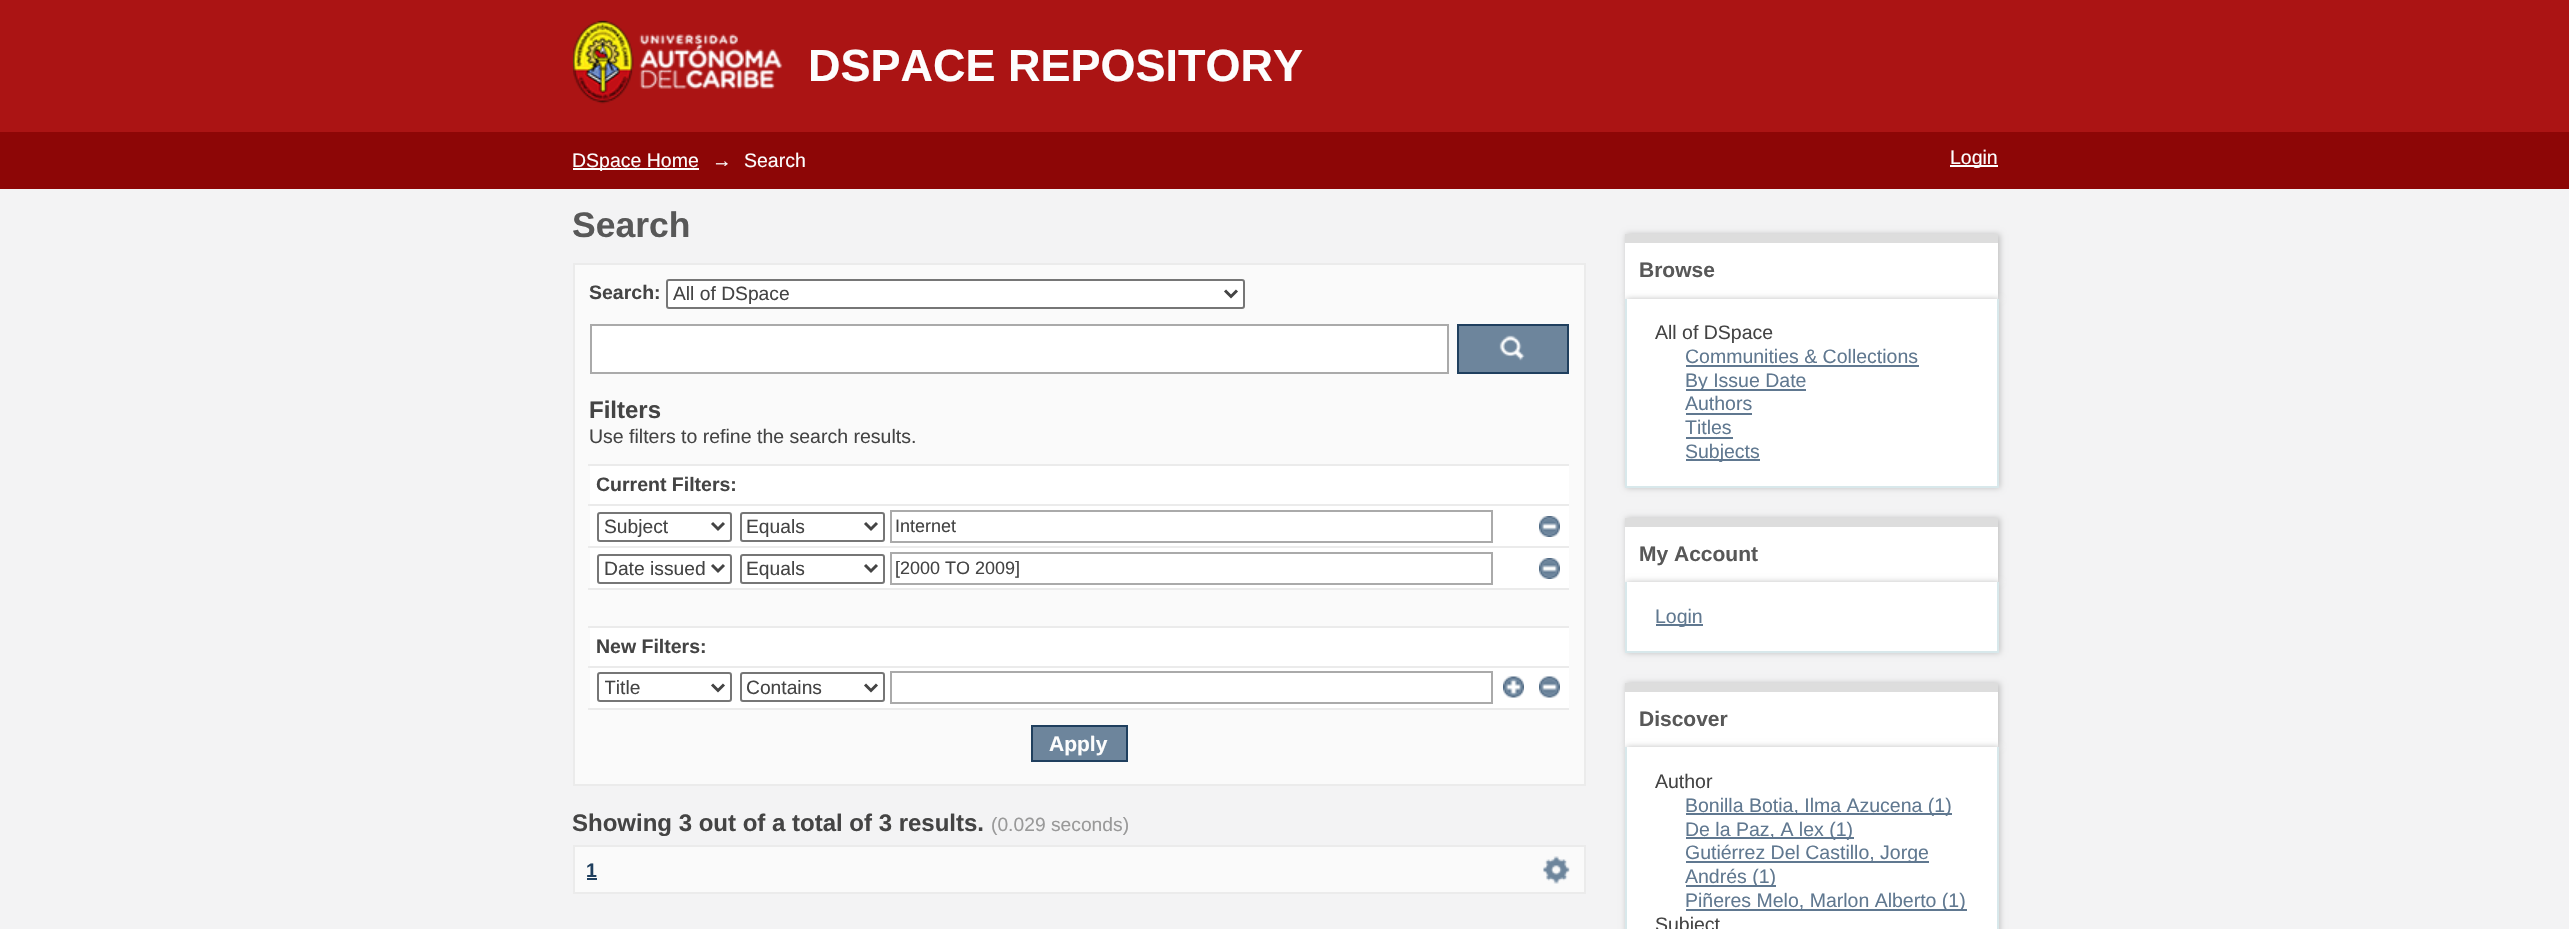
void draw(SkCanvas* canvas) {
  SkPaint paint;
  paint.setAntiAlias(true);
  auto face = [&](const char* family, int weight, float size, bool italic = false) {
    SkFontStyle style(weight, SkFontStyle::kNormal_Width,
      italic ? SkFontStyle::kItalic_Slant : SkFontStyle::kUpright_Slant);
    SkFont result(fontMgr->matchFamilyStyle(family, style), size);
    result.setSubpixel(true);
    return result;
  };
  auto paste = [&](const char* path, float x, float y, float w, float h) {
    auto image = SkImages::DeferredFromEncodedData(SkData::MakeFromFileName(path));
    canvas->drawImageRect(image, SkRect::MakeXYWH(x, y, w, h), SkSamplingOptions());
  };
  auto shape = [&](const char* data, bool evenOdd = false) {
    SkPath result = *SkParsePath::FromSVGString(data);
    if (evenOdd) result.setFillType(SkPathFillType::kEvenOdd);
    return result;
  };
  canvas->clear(0xfff3f3f4);
  {
    const struct { float x, y, w, h; SkColor color; } items[] = {
      {0, 132, 2569, 57, 0xff8d0606},
      {573, 168, 126, 2, 0xffffffff},
      {0, 0, 2569, 132, 0xffab1414},
    };
    for (auto [x, y, w, h, color] : items) {
      paint.setColor(color);
      canvas->drawRect(SkRect::MakeXYWH(x, y, w, h), paint);
    }
  }
  paste("img/1.png", 573, 20, 210, 84);
  paint.setColor(0xffffffff);
  canvas->drawRect(SkRect::MakeXYWH(1950, 165, 48, 2), paint);
  paint.setColor(0xfffafafa);
  canvas->drawRect(SkRect::MakeXYWH(574, 264, 1011, 521), paint);
  paint.setStroke(true);
  paint.setStrokeWidth(2);
  paint.setColor(0xffebebeb);
  canvas->drawRect(SkRect::MakeXYWH(574, 264, 1011, 521), paint);
  paint.setStroke(false);
  paint.setColor(0xffffffff);
  canvas->drawRoundRect(SkRect::MakeXYWH(667, 280, 577, 28), 2, 2, paint);
  paint.setStroke(true);
  paint.setColor(0xff767676);
  canvas->drawRoundRect(SkRect::MakeXYWH(667, 280, 577, 28), 2, 2, paint);
  paint.setStrokeWidth(3);
  paint.setColor(0xff444444);
  canvas->drawPath(shape("M1225 290.5L1231 296.5L1237 290.5"), paint);
  paint.setStroke(false);
  paint.setColor(0xffffffff);
  canvas->drawRect(SkRect::MakeXYWH(591, 325, 857, 48), paint);
  paint.setStroke(true);
  paint.setStrokeWidth(2);
  paint.setColor(0xffaaaaaa);
  canvas->drawRect(SkRect::MakeXYWH(591, 325, 857, 48), paint);
  paint.setStroke(false);
  paint.setColor(0xff6d859c);
  canvas->drawRect(SkRect::MakeXYWH(1459, 326, 108, 46), paint);
  paste("img/2.png", 1499, 335, 26, 26);
  paint.setStroke(true);
  paint.setColor(0xff1f3f5e);
  canvas->drawRect(SkRect::MakeXYWH(1458, 325, 110, 48), paint);
  paint.setStroke(false);
  {
    const struct { float x, y, w, h; SkColor color; } items[] = {
      {590, 466, 979, 242, 0xffffffff},
      {588, 464, 981, 2, 0xffebebeb},
      {588, 504, 981, 2, 0xffebebeb},
    };
    for (auto [x, y, w, h, color] : items) {
      paint.setColor(color);
      canvas->drawRect(SkRect::MakeXYWH(x, y, w, h), paint);
    }
  }
  paint.setStroke(true);
  paint.setColor(0xff767676);
  canvas->drawRoundRect(SkRect::MakeXYWH(598, 513, 133, 28), 2, 2, paint);
  paint.setStrokeWidth(3);
  paint.setColor(0xff444444);
  canvas->drawPath(shape("M712 523L718 529L724 523"), paint);
  paint.setStrokeWidth(2);
  paint.setColor(0xff767676);
  canvas->drawRoundRect(SkRect::MakeXYWH(741, 513, 143, 28), 2, 2, paint);
  paint.setStrokeWidth(3);
  paint.setColor(0xff444444);
  canvas->drawPath(shape("M865 523L871 529L877 523"), paint);
  paint.setStrokeWidth(2);
  paint.setColor(0xffaaaaaa);
  canvas->drawRect(SkRect::MakeXYWH(891, 511, 601, 31), paint);
  paste("img/3.png", 1539, 516, 21, 21);
  paint.setStroke(false);
  paint.setColor(0xffebebeb);
  canvas->drawRect(SkRect::MakeXYWH(588, 546, 981, 2), paint);
  paint.setStroke(true);
  paint.setColor(0xff767676);
  canvas->drawRoundRect(SkRect::MakeXYWH(598, 555, 133, 28), 2, 2, paint);
  paint.setStrokeWidth(3);
  paint.setColor(0xff444444);
  canvas->drawPath(shape("M712 565L718 571L724 565"), paint);
  paint.setStrokeWidth(2);
  paint.setColor(0xff767676);
  canvas->drawRoundRect(SkRect::MakeXYWH(741, 555, 143, 28), 2, 2, paint);
  paint.setStrokeWidth(3);
  paint.setColor(0xff444444);
  canvas->drawPath(shape("M865 565L871 571L877 565"), paint);
  paint.setStrokeWidth(2);
  paint.setColor(0xffaaaaaa);
  canvas->drawRect(SkRect::MakeXYWH(891, 553, 601, 31), paint);
  paste("img/3.png", 1539, 558, 21, 21);
  paint.setStroke(false);
  {
    const struct { float x, y, w, h; SkColor color; } items[] = {
      {590, 590, 979, 36, 0xfffafafa},
      {588, 588, 981, 2, 0xffebebeb},
      {588, 626, 981, 2, 0xffebebeb},
      {588, 666, 981, 2, 0xffebebeb},
    };
    for (auto [x, y, w, h, color] : items) {
      paint.setColor(color);
      canvas->drawRect(SkRect::MakeXYWH(x, y, w, h), paint);
    }
  }
  paint.setStroke(true);
  paint.setColor(0xff767676);
  canvas->drawRoundRect(SkRect::MakeXYWH(598, 673, 133, 28), 2, 2, paint);
  paint.setStrokeWidth(3);
  paint.setColor(0xff444444);
  canvas->drawPath(shape("M712 684.5L718 690.5L724 684.5"), paint);
  paint.setStrokeWidth(2);
  paint.setColor(0xff767676);
  canvas->drawRoundRect(SkRect::MakeXYWH(741, 673, 143, 28), 2, 2, paint);
  paint.setStrokeWidth(3);
  paint.setColor(0xff444444);
  canvas->drawPath(shape("M865 684.5L871 690.5L877 684.5"), paint);
  paint.setStrokeWidth(2);
  paint.setColor(0xffaaaaaa);
  canvas->drawRect(SkRect::MakeXYWH(891, 672, 601, 31), paint);
  paste("img/4.png", 1503, 676, 21, 22);
  paste("img/5.png", 1539, 676, 21, 22);
  paint.setStroke(false);
  paint.setColor(0xffebebeb);
  canvas->drawRect(SkRect::MakeXYWH(588, 708, 981, 2), paint);
  paint.setColor(0xff6d859c);
  canvas->drawRect(SkRect::MakeXYWH(1032, 726, 95, 35), paint);
  paint.setStroke(true);
  paint.setColor(0xff1f3f5e);
  canvas->drawRect(SkRect::MakeXYWH(1032, 726, 95, 35), paint);
  paint.setStroke(false);
  paint.setColor(0xfffafafa);
  canvas->drawRect(SkRect::MakeXYWH(574, 846, 1011, 47), paint);
  paint.setStroke(true);
  paint.setColor(0xffebebeb);
  canvas->drawRect(SkRect::MakeXYWH(574, 846, 1011, 47), paint);
  paint.setStroke(false);
  paint.setColor(0xff1f3f5e);
  canvas->drawRect(SkRect::MakeXYWH(587, 878, 10, 2), paint);
  paste("img/6.png", 1543, 856, 27, 28);
  paint.setColor(0xffc0c0c0);
  paint.setMaskFilter(SkMaskFilter::MakeBlur(kNormal_SkBlurStyle, 3));
  canvas->drawRect(SkRect::MakeXYWH(1626, 234, 374, 65), paint);
  paint.setMaskFilter(nullptr);
  paint.setColor(0xffffffff);
  canvas->drawRect(SkRect::MakeXYWH(1625, 243, 373, 56), paint);
  paint.setColor(0xffdddddd);
  canvas->drawRect(SkRect::MakeXYWH(1625, 234, 373, 9), paint);
  paint.setColor(0xffc0c0c0);
  paint.setMaskFilter(SkMaskFilter::MakeBlur(kNormal_SkBlurStyle, 3));
  canvas->drawRect(SkRect::MakeXYWH(1626, 299, 374, 189), paint);
  paint.setMaskFilter(nullptr);
  {
    const struct { float x, y, w, h; SkColor color; } items[] = {
      {1627, 299, 370, 187, 0xffffffff},
      {1997, 299, 2, 189, 0xffd8e8eb},
      {1625, 486, 373, 2, 0xffd8e8eb},
      {1625, 299, 2, 189, 0xffd8e8eb},
      {1686, 365, 233, 2, 0xff607890},
      {1686, 389, 120, 2, 0xff607890},
      {1686, 413, 66, 2, 0xff607890},
      {1686, 437, 47, 2, 0xff607890},
      {1686, 459, 74, 2, 0xff607890},
    };
    for (auto [x, y, w, h, color] : items) {
      paint.setColor(color);
      canvas->drawRect(SkRect::MakeXYWH(x, y, w, h), paint);
    }
  }
  paint.setColor(0xffc0c0c0);
  paint.setMaskFilter(SkMaskFilter::MakeBlur(kNormal_SkBlurStyle, 3));
  canvas->drawRect(SkRect::MakeXYWH(1626, 518, 374, 64), paint);
  paint.setMaskFilter(nullptr);
  paint.setColor(0xffffffff);
  canvas->drawRect(SkRect::MakeXYWH(1625, 527, 373, 55), paint);
  paint.setColor(0xffdddddd);
  canvas->drawRect(SkRect::MakeXYWH(1625, 518, 373, 9), paint);
  paint.setColor(0xffc0c0c0);
  paint.setMaskFilter(SkMaskFilter::MakeBlur(kNormal_SkBlurStyle, 3));
  canvas->drawRect(SkRect::MakeXYWH(1626, 582, 374, 71), paint);
  paint.setMaskFilter(nullptr);
  {
    const struct { float x, y, w, h; SkColor color; } items[] = {
      {1627, 582, 370, 69, 0xffffffff},
      {1997, 582, 2, 71, 0xffd8e8eb},
      {1625, 651, 373, 2, 0xffd8e8eb},
      {1625, 582, 2, 71, 0xffd8e8eb},
      {1656, 624, 47, 2, 0xff607890},
    };
    for (auto [x, y, w, h, color] : items) {
      paint.setColor(color);
      canvas->drawRect(SkRect::MakeXYWH(x, y, w, h), paint);
    }
  }
  paint.setColor(0xffc0c0c0);
  paint.setMaskFilter(SkMaskFilter::MakeBlur(kNormal_SkBlurStyle, 3));
  canvas->drawRect(SkRect::MakeXYWH(1626, 683, 374, 64), paint);
  paint.setMaskFilter(nullptr);
  paint.setColor(0xffffffff);
  canvas->drawRect(SkRect::MakeXYWH(1625, 692, 373, 55), paint);
  paint.setColor(0xffdddddd);
  canvas->drawRect(SkRect::MakeXYWH(1625, 683, 373, 9), paint);
  paint.setColor(0xffc0c0c0);
  paint.setMaskFilter(SkMaskFilter::MakeBlur(kNormal_SkBlurStyle, 3));
  canvas->drawRect(SkRect::MakeXYWH(1626, 747, 374, 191), paint);
  paint.setMaskFilter(nullptr);
  {
    const struct { float x, y, w, h; SkColor color; } items[] = {
      {1627, 747, 370, 182, 0xffffffff},
      {1997, 747, 2, 182, 0xffd8e8eb},
      {1625, 747, 2, 182, 0xffd8e8eb},
      {1686, 813, 266, 2, 0xff607890},
      {1686, 837, 168, 2, 0xff607890},
      {1686, 861, 243, 2, 0xff607890},
      {1686, 885, 90, 2, 0xff607890},
      {1686, 909, 281, 2, 0xff607890},
    };
    for (auto [x, y, w, h, color] : items) {
      paint.setColor(color);
      canvas->drawRect(SkRect::MakeXYWH(x, y, w, h), paint);
    }
  }
  auto f0 = face("Liberation Sans", 400, 19.5f);
  paint.setColor(0xfffdfdfd);
  {
    const struct { const char* s; float x, y; } items[] = {
      {"DSpace Home", 572, 167},
      {"→", 712, 167},
      {"Search", 744, 167},
    };
    for (auto [s, x, y] : items) {
      canvas->drawString(s, x, y, f0, paint);
    }
  }
  auto f1 = face("Liberation Sans", 700, 45);
  canvas->drawString("DSPACE REPOSITORY", 808, 81, f1, paint);
  canvas->drawString("Login", 1950, 164, f0, paint);
  auto f2 = face("Liberation Sans", 700, 35.5f);
  paint.setColor(0xff585858);
  canvas->drawString("Search", 572, 237, f2, paint);
  auto f3 = face("Liberation Sans", 700, 19.5f);
  paint.setColor(0xff444444);
  canvas->drawString("Search:", 589, 299, f3, paint);
  auto f4 = face("Liberation Sans", 400, 19.25f);
  canvas->drawString("All of DSpace", 673, 300, f4, paint);
  auto f5 = face("Liberation Sans", 700, 24);
  canvas->drawString("Filters", 589, 418, f5, paint);
  canvas->drawString("Use filters to refine the search results.", 589, 443, f0, paint);
  canvas->drawString("Current Filters:", 596, 491, f3, paint);
  canvas->drawString("Subject", 604, 533, f4, paint);
  canvas->drawString("Equals", 746, 533, f4, paint);
  auto f6 = face("Liberation Sans", 400, 18);
  canvas->drawString("Internet", 895, 532, f6, paint);
  canvas->drawString("Date issued", 604, 575, f4, paint);
  canvas->drawString("Equals", 746, 575, f4, paint);
  canvas->drawString("[2000 TO 2009]", 895, 574, f6, paint);
  canvas->drawString("New Filters:", 596, 653, f3, paint);
  canvas->save();
  canvas->clipRect(SkRect::MakeXYWH(605, 675, 102, 26));
  canvas->drawString("Title", 604, 694, f4, paint);
  canvas->restore();
  canvas->drawString("Contains", 746, 694, f4, paint);
  auto f7 = face("Liberation Sans", 700, 21);
  paint.setColor(0xfffdfdfd);
  canvas->drawString("Apply", 1049, 751, f7, paint);
  paint.setColor(0xff444444);
  canvas->drawString("Showing 3 out of a total of 3 results.", 572, 831, f5, paint);
  paint.setColor(0xff999999);
  canvas->drawString("(0.029 seconds)", 991, 831, f4, paint);
  paint.setColor(0xff1f3f5e);
  canvas->drawString("1", 586, 877, f3, paint);
  paint.setColor(0xff585858);
  canvas->drawString("Browse", 1639, 277, f7, paint);
  paint.setColor(0xff444444);
  canvas->drawString("All of DSpace", 1655, 339, f0, paint);
  paint.setColor(0xff607890);
  {
    const struct { const char* s; float x, y; } items[] = {
      {"Communities & Collections", 1685, 363},
      {"By Issue Date", 1685, 387},
      {"Authors", 1685, 410},
      {"Titles", 1685, 434},
      {"Subjects", 1685, 458},
    };
    for (auto [s, x, y] : items) {
      canvas->drawString(s, x, y, f0, paint);
    }
  }
  paint.setColor(0xff585858);
  canvas->drawString("My Account", 1639, 561, f7, paint);
  paint.setColor(0xff607890);
  canvas->drawString("Login", 1655, 623, f0, paint);
  paint.setColor(0xff585858);
  canvas->drawString("Discover", 1639, 726, f7, paint);
  paint.setColor(0xff444444);
  canvas->drawString("Author", 1655, 788, f0, paint);
  paint.setColor(0xff607890);
  {
    const struct { const char* s; float x, y; } items[] = {
      {"Bonilla Botia, Ilma Azucena (1)", 1685, 812},
      {"De la Paz, A lex (1)", 1685, 836},
      {"Gutiérrez Del Castillo, Jorge", 1685, 859},
      {"Andrés (1)", 1685, 883},
      {"Piñeres Melo, Marlon Alberto (1)", 1685, 907},
    };
    for (auto [s, x, y] : items) {
      canvas->drawString(s, x, y, f0, paint);
    }
  }
  paint.setColor(0xff444444);
  canvas->drawString("Subject", 1655, 931, f0, paint);
}
